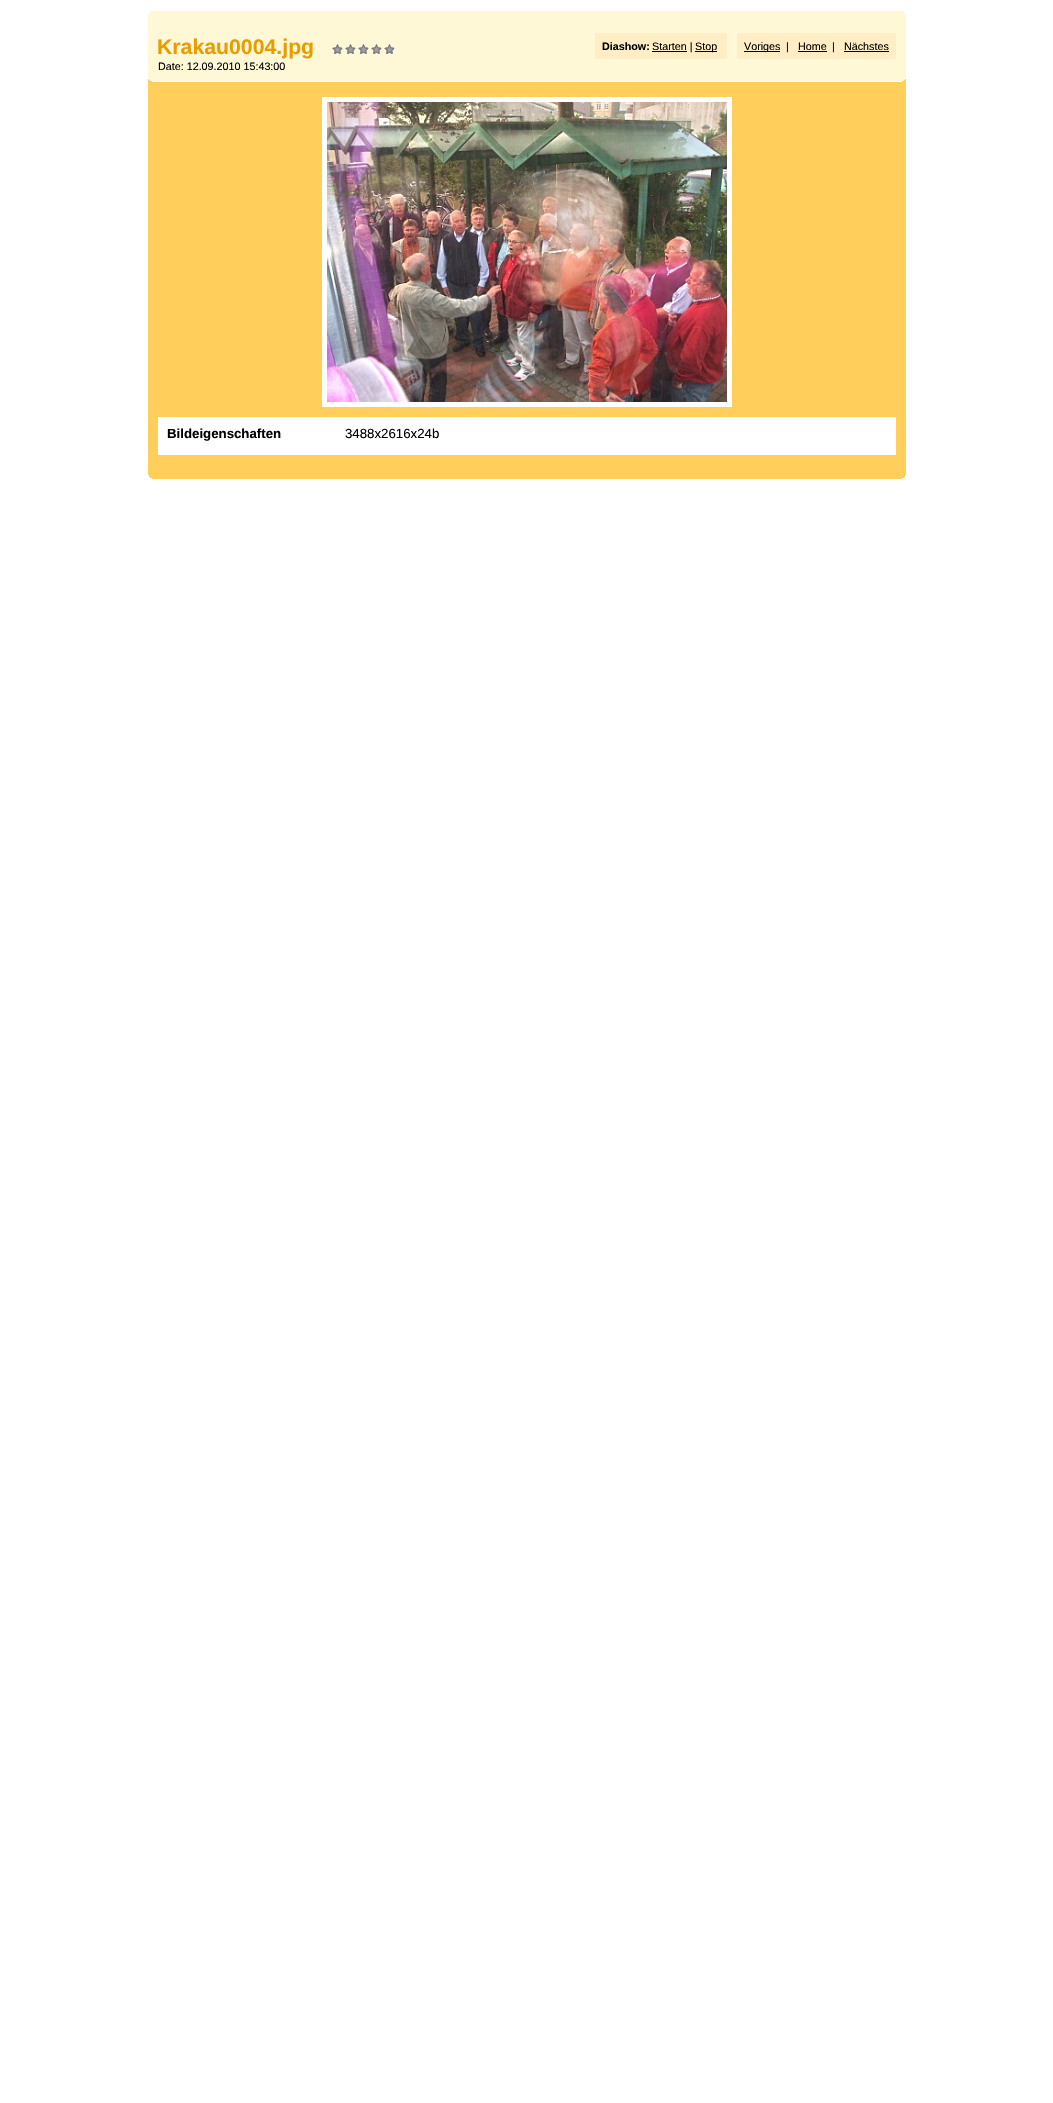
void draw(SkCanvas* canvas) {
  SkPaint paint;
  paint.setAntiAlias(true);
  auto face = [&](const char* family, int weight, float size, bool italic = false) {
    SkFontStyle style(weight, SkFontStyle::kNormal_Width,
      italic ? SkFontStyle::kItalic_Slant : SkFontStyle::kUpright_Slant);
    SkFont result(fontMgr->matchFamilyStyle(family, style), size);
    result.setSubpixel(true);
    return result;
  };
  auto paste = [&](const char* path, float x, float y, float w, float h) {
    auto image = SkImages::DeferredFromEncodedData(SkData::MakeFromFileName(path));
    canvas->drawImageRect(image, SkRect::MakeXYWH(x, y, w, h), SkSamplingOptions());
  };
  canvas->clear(0xffffffff);
  {
    const struct { float x, y, w, h; SkColor color; } items[] = {
      {150, 11, 754, 1, 0xfffff8d6},
      {903, 11, 1, 1, 0xffffffff},
      {150, 11, 1, 1, 0xffffffff},
      {149, 12, 756, 1, 0xfffff8d6},
      {904, 12, 1, 1, 0xffffffff},
      {149, 12, 1, 1, 0xffffffff},
      {148, 13, 758, 66, 0xfffff8d6},
      {905, 13, 1, 2, 0xffffffff},
      {148, 13, 1, 2, 0xffffffff},
    };
    for (auto [x, y, w, h, color] : items) {
      paint.setColor(color);
      canvas->drawRect(SkRect::MakeXYWH(x, y, w, h), paint);
    }
  }
  paste("img/1.png", 332, 44, 63, 10);
  {
    const struct { float x, y, w, h; SkColor color; } items[] = {
      {595, 33, 132, 26, 0xffffeec5},
      {652, 51, 35, 1, 0xff000000},
      {695, 51, 22, 1, 0xff000000},
      {737, 33, 159, 26, 0xffffeec5},
      {744, 51, 36, 1, 0xff000000},
      {798, 51, 29, 1, 0xff000000},
      {844, 51, 45, 1, 0xff000000},
      {905, 77, 1, 2, 0xffffffff},
      {148, 77, 1, 2, 0xffffffff},
      {148, 79, 758, 398, 0xffffce5b},
      {149, 79, 756, 1, 0xfffff8d6},
      {904, 79, 1, 1, 0xffffffff},
      {149, 79, 1, 1, 0xffffffff},
      {150, 80, 754, 1, 0xfffff8d6},
      {903, 80, 1, 1, 0xffffffff},
      {150, 80, 1, 1, 0xffffffff},
      {152, 81, 750, 1, 0xffffffff},
      {322, 97, 410, 310, 0xffffffff},
    };
    for (auto [x, y, w, h, color] : items) {
      paint.setColor(color);
      canvas->drawRect(SkRect::MakeXYWH(x, y, w, h), paint);
    }
  }
  paste("img/2.png", 327, 102, 400, 300);
  {
    const struct { float x, y, w, h; SkColor color; } items[] = {
      {158, 417, 738, 38, 0xffffffff},
      {905, 475, 1, 2, 0xffffffff},
      {148, 475, 1, 2, 0xffffffff},
      {149, 477, 756, 1, 0xffffce5b},
      {904, 477, 1, 1, 0xffffffff},
      {149, 477, 1, 1, 0xffffffff},
      {150, 478, 754, 1, 0xffffce5b},
      {902, 478, 2, 1, 0xffffffff},
      {150, 478, 2, 1, 0xffffffff},
    };
    for (auto [x, y, w, h, color] : items) {
      paint.setColor(color);
      canvas->drawRect(SkRect::MakeXYWH(x, y, w, h), paint);
    }
  }
  auto f0 = face("Liberation Sans", 700, 21.25f);
  paint.setColor(0xffe89c00);
  canvas->drawString("Krakau0004.jpg", 157, 54, f0, paint);
  auto f1 = face("Liberation Sans", 400, 10.75f);
  paint.setColor(0xff000000);
  canvas->drawString("Date: 12.09.2010 15:43:00", 158, 70, f1, paint);
  auto f2 = face("Liberation Sans", 700, 10.75f);
  canvas->drawString("Diashow:", 602, 50, f2, paint);
  {
    const struct { const char* s; float x, y; } items[] = {
      {"Starten |", 652, 50},
      {"Stop", 695, 50},
      {"Voriges", 744, 50},
      {"|", 786, 50},
      {"Home", 798, 50},
      {"|", 832, 50},
      {"Nächstes", 844, 50},
    };
    for (auto [s, x, y] : items) {
      canvas->drawString(s, x, y, f1, paint);
    }
  }
  auto f3 = face("Liberation Sans", 700, 13.25f);
  canvas->drawString("Bildeigenschaften", 167, 438, f3, paint);
  auto f4 = face("Liberation Sans", 400, 13.25f);
  canvas->drawString("3488x2616x24b", 345, 438, f4, paint);
}
